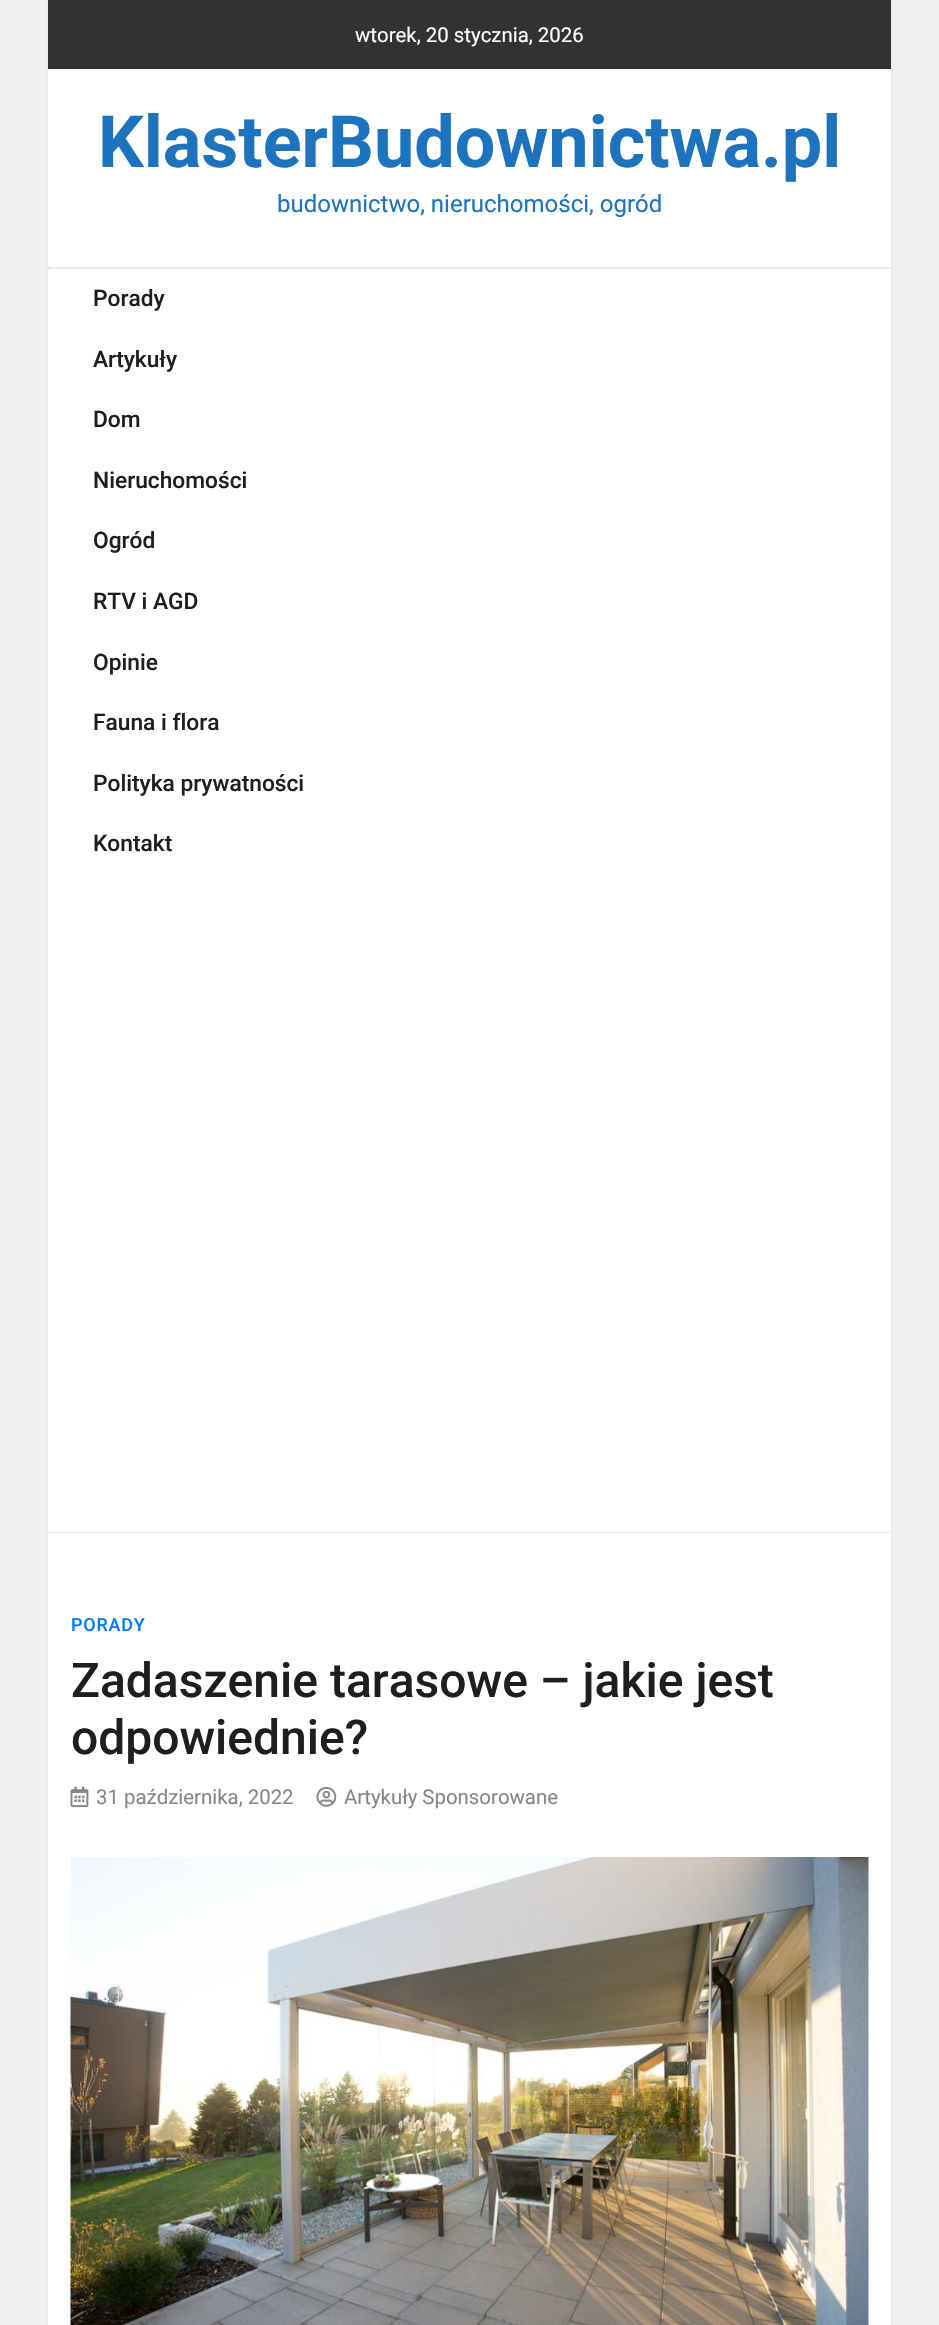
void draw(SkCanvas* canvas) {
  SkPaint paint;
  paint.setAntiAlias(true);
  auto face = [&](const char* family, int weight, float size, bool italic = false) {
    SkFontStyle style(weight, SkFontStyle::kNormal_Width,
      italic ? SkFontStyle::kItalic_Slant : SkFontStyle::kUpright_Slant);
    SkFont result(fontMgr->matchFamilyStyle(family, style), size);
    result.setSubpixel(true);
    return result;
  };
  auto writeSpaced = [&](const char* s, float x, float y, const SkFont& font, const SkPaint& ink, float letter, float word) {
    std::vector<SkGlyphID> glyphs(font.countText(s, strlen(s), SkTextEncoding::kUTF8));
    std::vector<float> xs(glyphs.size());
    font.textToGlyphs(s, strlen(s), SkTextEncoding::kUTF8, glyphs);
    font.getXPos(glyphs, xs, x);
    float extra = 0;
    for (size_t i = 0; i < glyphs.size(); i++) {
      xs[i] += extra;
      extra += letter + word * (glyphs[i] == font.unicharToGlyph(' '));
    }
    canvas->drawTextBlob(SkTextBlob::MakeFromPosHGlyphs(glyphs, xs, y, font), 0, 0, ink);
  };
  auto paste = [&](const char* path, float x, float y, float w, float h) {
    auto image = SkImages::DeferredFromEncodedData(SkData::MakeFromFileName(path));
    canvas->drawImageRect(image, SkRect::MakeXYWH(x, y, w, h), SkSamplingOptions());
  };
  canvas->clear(0xfff0f0f0);
  {
    const struct { float x, y, w, h; SkColor color; } items[] = {
      {48, 1532, 843, 1, 0xffebebeb},
      {48, 267, 843, 2, 0xffebebeb},
      {891, 0, 2, 2325, 0xffebebeb},
      {47, 0, 1, 2325, 0xffebebeb},
      {48, 1532, 1, 2, 0xffd8d8d8},
      {48, 267, 1, 2, 0xffd8d8d8},
      {48, 0, 843, 69, 0xff323232},
      {48, 69, 843, 198, 0xffffffff},
      {48, 269, 843, 1263, 0xffffffff},
      {48, 1533, 843, 792, 0xffffffff},
    };
    for (auto [x, y, w, h, color] : items) {
      paint.setColor(color);
      canvas->drawRect(SkRect::MakeXYWH(x, y, w, h), paint);
    }
  }
  paste("img/1.png", 70, 1786, 19, 22);
  paste("img/2.png", 316, 1787, 21, 20);
  paste("img/3.png", 70, 1857, 799, 468);
  auto f0 = face("Roboto", 400, 20.4f);
  canvas->drawString("wtorek, 20 stycznia, 2026", 355, 42, f0, paint);
  auto f1 = face("Roboto", 700, 72);
  paint.setColor(0xff1e73be);
  canvas->drawString("KlasterBudownictwa.pl", 98, 167, f1, paint);
  auto f2 = face("Roboto", 400, 24);
  canvas->drawString("budownictwo, nieruchomości, ogród", 277, 212, f2, paint);
  auto f3 = face("Roboto", 500, 22.75f);
  paint.setColor(0xff1e1e1e);
  {
    const struct { const char* s; float x, y; } items[] = {
      {"Porady", 93, 306},
      {"Artykuły", 93, 367},
      {"Dom", 93, 427},
      {"Nieruchomości", 93, 488},
      {"Ogród", 93, 548},
      {"RTV i AGD", 93, 609},
      {"Opinie", 93, 670},
      {"Fauna i flora", 93, 730},
      {"Polityka prywatności", 93, 791},
      {"Kontakt", 93, 851},
    };
    for (auto [s, x, y] : items) {
      canvas->drawString(s, x, y, f3, paint);
    }
  }
  auto f4 = face("Roboto", 500, 18);
  paint.setColor(0xff007bff);
  writeSpaced("PORADY", 71, 1631, f4, paint, 0.75f, 0);
  auto f5 = face("Roboto", 500, 48);
  paint.setColor(0xff1e1e1e);
  canvas->drawString("Zadaszenie tarasowe – jakie jest", 71, 1697, f5, paint);
  canvas->drawString("odpowiednie?", 71, 1754, f5, paint);
  paint.setColor(0xff868686);
  canvas->drawString("31 października, 2022", 96, 1804, f0, paint);
  canvas->drawString("Artykuły Sponsorowane", 344, 1804, f0, paint);
}
